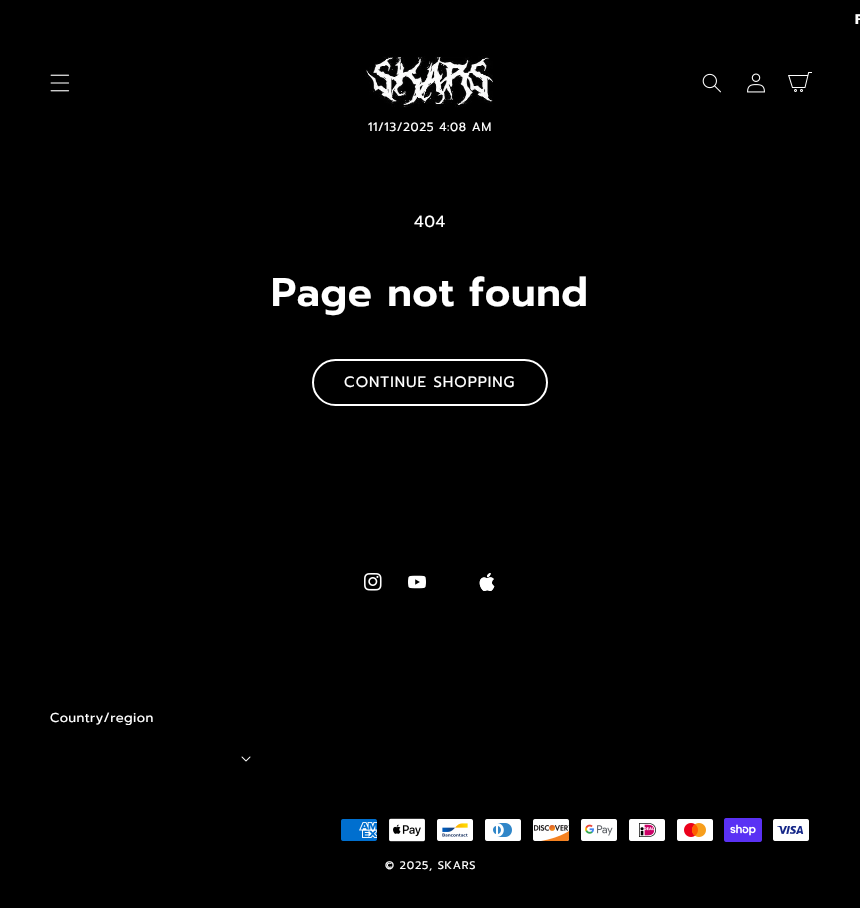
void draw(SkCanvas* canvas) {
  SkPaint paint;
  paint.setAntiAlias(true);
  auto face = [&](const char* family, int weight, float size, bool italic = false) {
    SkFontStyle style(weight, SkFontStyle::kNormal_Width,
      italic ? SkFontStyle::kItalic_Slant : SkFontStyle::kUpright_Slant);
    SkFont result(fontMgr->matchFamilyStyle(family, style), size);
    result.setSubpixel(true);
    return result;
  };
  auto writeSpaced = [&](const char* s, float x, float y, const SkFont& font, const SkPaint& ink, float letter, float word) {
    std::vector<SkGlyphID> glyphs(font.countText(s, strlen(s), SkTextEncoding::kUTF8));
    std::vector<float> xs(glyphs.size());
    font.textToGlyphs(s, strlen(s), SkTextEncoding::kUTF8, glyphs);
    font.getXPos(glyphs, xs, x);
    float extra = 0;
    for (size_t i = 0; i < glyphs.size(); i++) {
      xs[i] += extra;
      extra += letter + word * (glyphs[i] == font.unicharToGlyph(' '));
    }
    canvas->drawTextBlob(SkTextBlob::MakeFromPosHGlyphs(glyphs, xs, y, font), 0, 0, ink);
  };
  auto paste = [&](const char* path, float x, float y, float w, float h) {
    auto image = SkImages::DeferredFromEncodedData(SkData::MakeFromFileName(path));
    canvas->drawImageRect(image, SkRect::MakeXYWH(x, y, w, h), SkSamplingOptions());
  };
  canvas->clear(0xff000000);
  paste("img/1.png", 50, 74, 20, 18);
  paste("img/2.png", 365, 56, 128, 52);
  paste("img/3.png", 702, 73, 19, 20);
  paste("img/4.png", 747, 73, 18, 20);
  paste("img/5.png", 788, 72, 24, 20);
  paint.setStroke(true);
  paint.setStrokeWidth(2);
  paint.setColor(0xffffffff);
  canvas->drawRoundRect(SkRect::MakeXYWH(313, 360, 234, 45), 22.5f, 22.5f, paint);
  paste("img/6.png", 364, 573, 18, 18);
  paste("img/7.png", 408, 575, 18, 14);
  paste("img/8.png", 479, 573, 16, 18);
  paste("img/9.png", 241, 756, 10, 6);
  paste("img/10.png", 341, 819, 36, 22);
  paste("img/11.png", 389, 818, 36, 24);
  paste("img/12.png", 437, 819, 36, 22);
  paste("img/13.png", 485, 819, 36, 22);
  paste("img/14.png", 533, 819, 37, 22);
  paste("img/15.png", 581, 819, 36, 22);
  paste("img/16.png", 629, 819, 36, 22);
  paste("img/17.png", 677, 819, 36, 22);
  paste("img/18.png", 724, 818, 38, 24);
  paste("img/19.png", 773, 819, 36, 22);
  auto f0 = face("Prompt", 700, 14);
  paint.setStroke(false);
  writeSpaced("F", 855, 24, f0, paint, 0.6f, 0);
  auto f1 = face("Prompt", 400, 12);
  writeSpaced("11/13/2025 4:08 AM", 368, 131, f1, paint, 0.6f, 0);
  auto f2 = face("Prompt", 400, 16);
  writeSpaced("404", 414, 227, f2, paint, 0.6f, 0);
  auto f3 = face("Prompt", 600, 40);
  writeSpaced("Page not found", 271, 306, f3, paint, 0.6f, 0);
  auto f4 = face("Prompt", 400, 15);
  writeSpaced("CONTINUE SHOPPING", 344, 387, f4, paint, 1, 0);
  auto f5 = face("Prompt", 400, 13);
  writeSpaced("Country/region", 50, 722, f5, paint, 0.4f, 0);
  auto f6 = face("Prompt", 400, 11);
  writeSpaced("© 2025, SKARS", 385, 869, f6, paint, 0.75f, 0);
}
